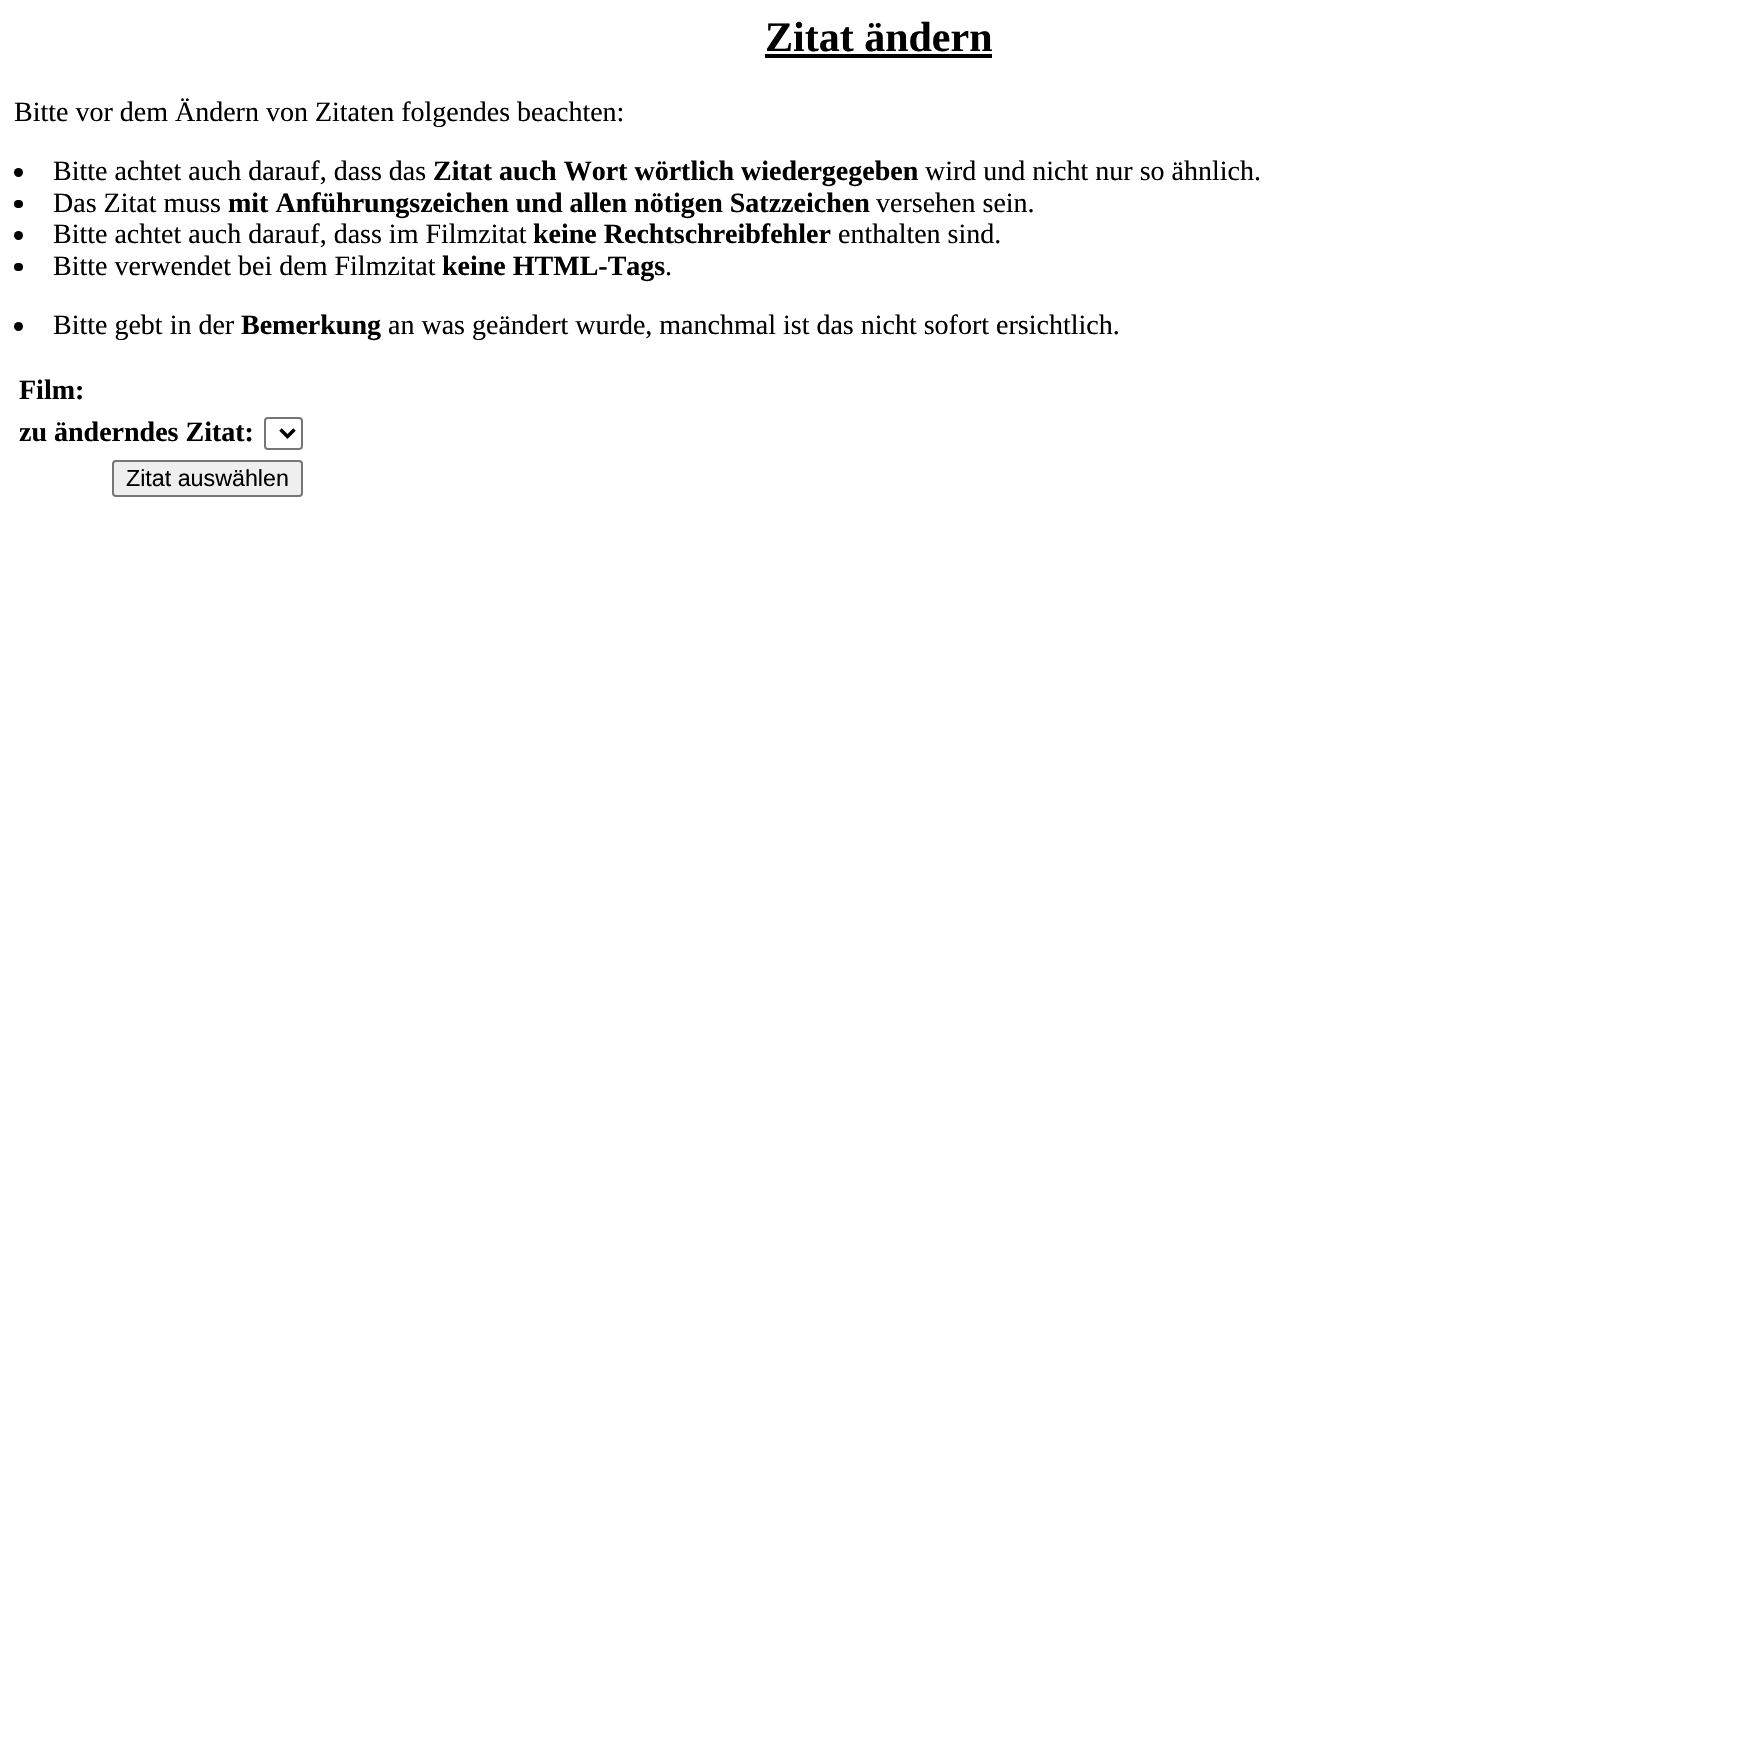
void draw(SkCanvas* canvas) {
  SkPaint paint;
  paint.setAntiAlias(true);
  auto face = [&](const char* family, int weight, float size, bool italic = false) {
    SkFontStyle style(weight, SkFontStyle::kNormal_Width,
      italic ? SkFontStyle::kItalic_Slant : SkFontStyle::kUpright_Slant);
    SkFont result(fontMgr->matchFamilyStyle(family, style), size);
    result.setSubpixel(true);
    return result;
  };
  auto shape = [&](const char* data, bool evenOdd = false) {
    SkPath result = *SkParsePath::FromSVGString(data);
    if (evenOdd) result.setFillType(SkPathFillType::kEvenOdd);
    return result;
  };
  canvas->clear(0xffffffff);
  paint.setColor(0xff000000);
  canvas->drawRect(SkRect::MakeXYWH(765, 54, 227, 4), paint);
  canvas->drawCircle(18.5f, 172.5f, 4.5f, paint);
  canvas->drawRoundRect(SkRect::MakeXYWH(14, 200, 9, 8), 4, 4, paint);
  canvas->drawCircle(18.5f, 235.5f, 4.5f, paint);
  canvas->drawRoundRect(SkRect::MakeXYWH(14, 263, 9, 8), 4, 4, paint);
  canvas->drawCircle(18.5f, 326.5f, 4.5f, paint);
  paint.setStroke(true);
  paint.setStrokeWidth(2);
  paint.setColor(0xff767676);
  canvas->drawRoundRect(SkRect::MakeXYWH(265, 418, 37, 31), 3, 3, paint);
  paint.setStrokeWidth(3.5f);
  paint.setColor(0xff000000);
  canvas->drawPath(shape("M280.5 429.5L287.5 436.5L294.5 429.5"), paint);
  paint.setStroke(false);
  paint.setColor(0xffefefef);
  canvas->drawRoundRect(SkRect::MakeXYWH(113, 461, 189, 35), 3, 3, paint);
  paint.setStroke(true);
  paint.setStrokeWidth(2);
  paint.setColor(0xff767676);
  canvas->drawRoundRect(SkRect::MakeXYWH(113, 461, 189, 35), 3, 3, paint);
  auto f0 = face("Liberation Serif", 700, 42);
  paint.setStroke(false);
  paint.setColor(0xff000000);
  canvas->drawString("Zitat ändern", 765, 51, f0, paint);
  auto f1 = face("Liberation Serif", 400, 28);
  canvas->drawString("Bitte vor dem Ändern von Zitaten folgendes beachten:", 14, 121, f1, paint);
  canvas->drawString("Bitte achtet auch darauf, dass das", 53, 180, f1, paint);
  auto f2 = face("Liberation Serif", 700, 28);
  canvas->drawString("Zitat auch Wort wörtlich wiedergegeben", 433, 180, f2, paint);
  canvas->drawString("wird und nicht nur so ähnlich.", 925, 180, f1, paint);
  canvas->drawString("Das Zitat muss", 53, 212, f1, paint);
  canvas->drawString("mit Anführungszeichen und allen nötigen Satzzeichen", 228, 212, f2, paint);
  canvas->drawString("versehen sein.", 876, 212, f1, paint);
  canvas->drawString("Bitte achtet auch darauf, dass im Filmzitat", 53, 243, f1, paint);
  canvas->drawString("keine Rechtschreibfehler", 533, 243, f2, paint);
  canvas->drawString("enthalten sind.", 838, 243, f1, paint);
  canvas->drawString("Bitte verwendet bei dem Filmzitat", 53, 275, f1, paint);
  canvas->drawString("keine HTML-Tags", 442, 275, f2, paint);
  canvas->drawString(".", 665, 275, f1, paint);
  canvas->drawString("Bitte gebt in der", 53, 334, f1, paint);
  canvas->drawString("Bemerkung", 241, 334, f2, paint);
  canvas->drawString("an was geändert wurde, manchmal ist das nicht sofort ersichtlich.", 388, 334, f1, paint);
  canvas->drawString("Film:", 19, 399, f2, paint);
  canvas->drawString("zu änderndes Zitat:", 19, 441, f2, paint);
  auto f3 = face("Liberation Sans", 400, 23.25f);
  canvas->drawString("Zitat auswählen", 126, 486, f3, paint);
}
